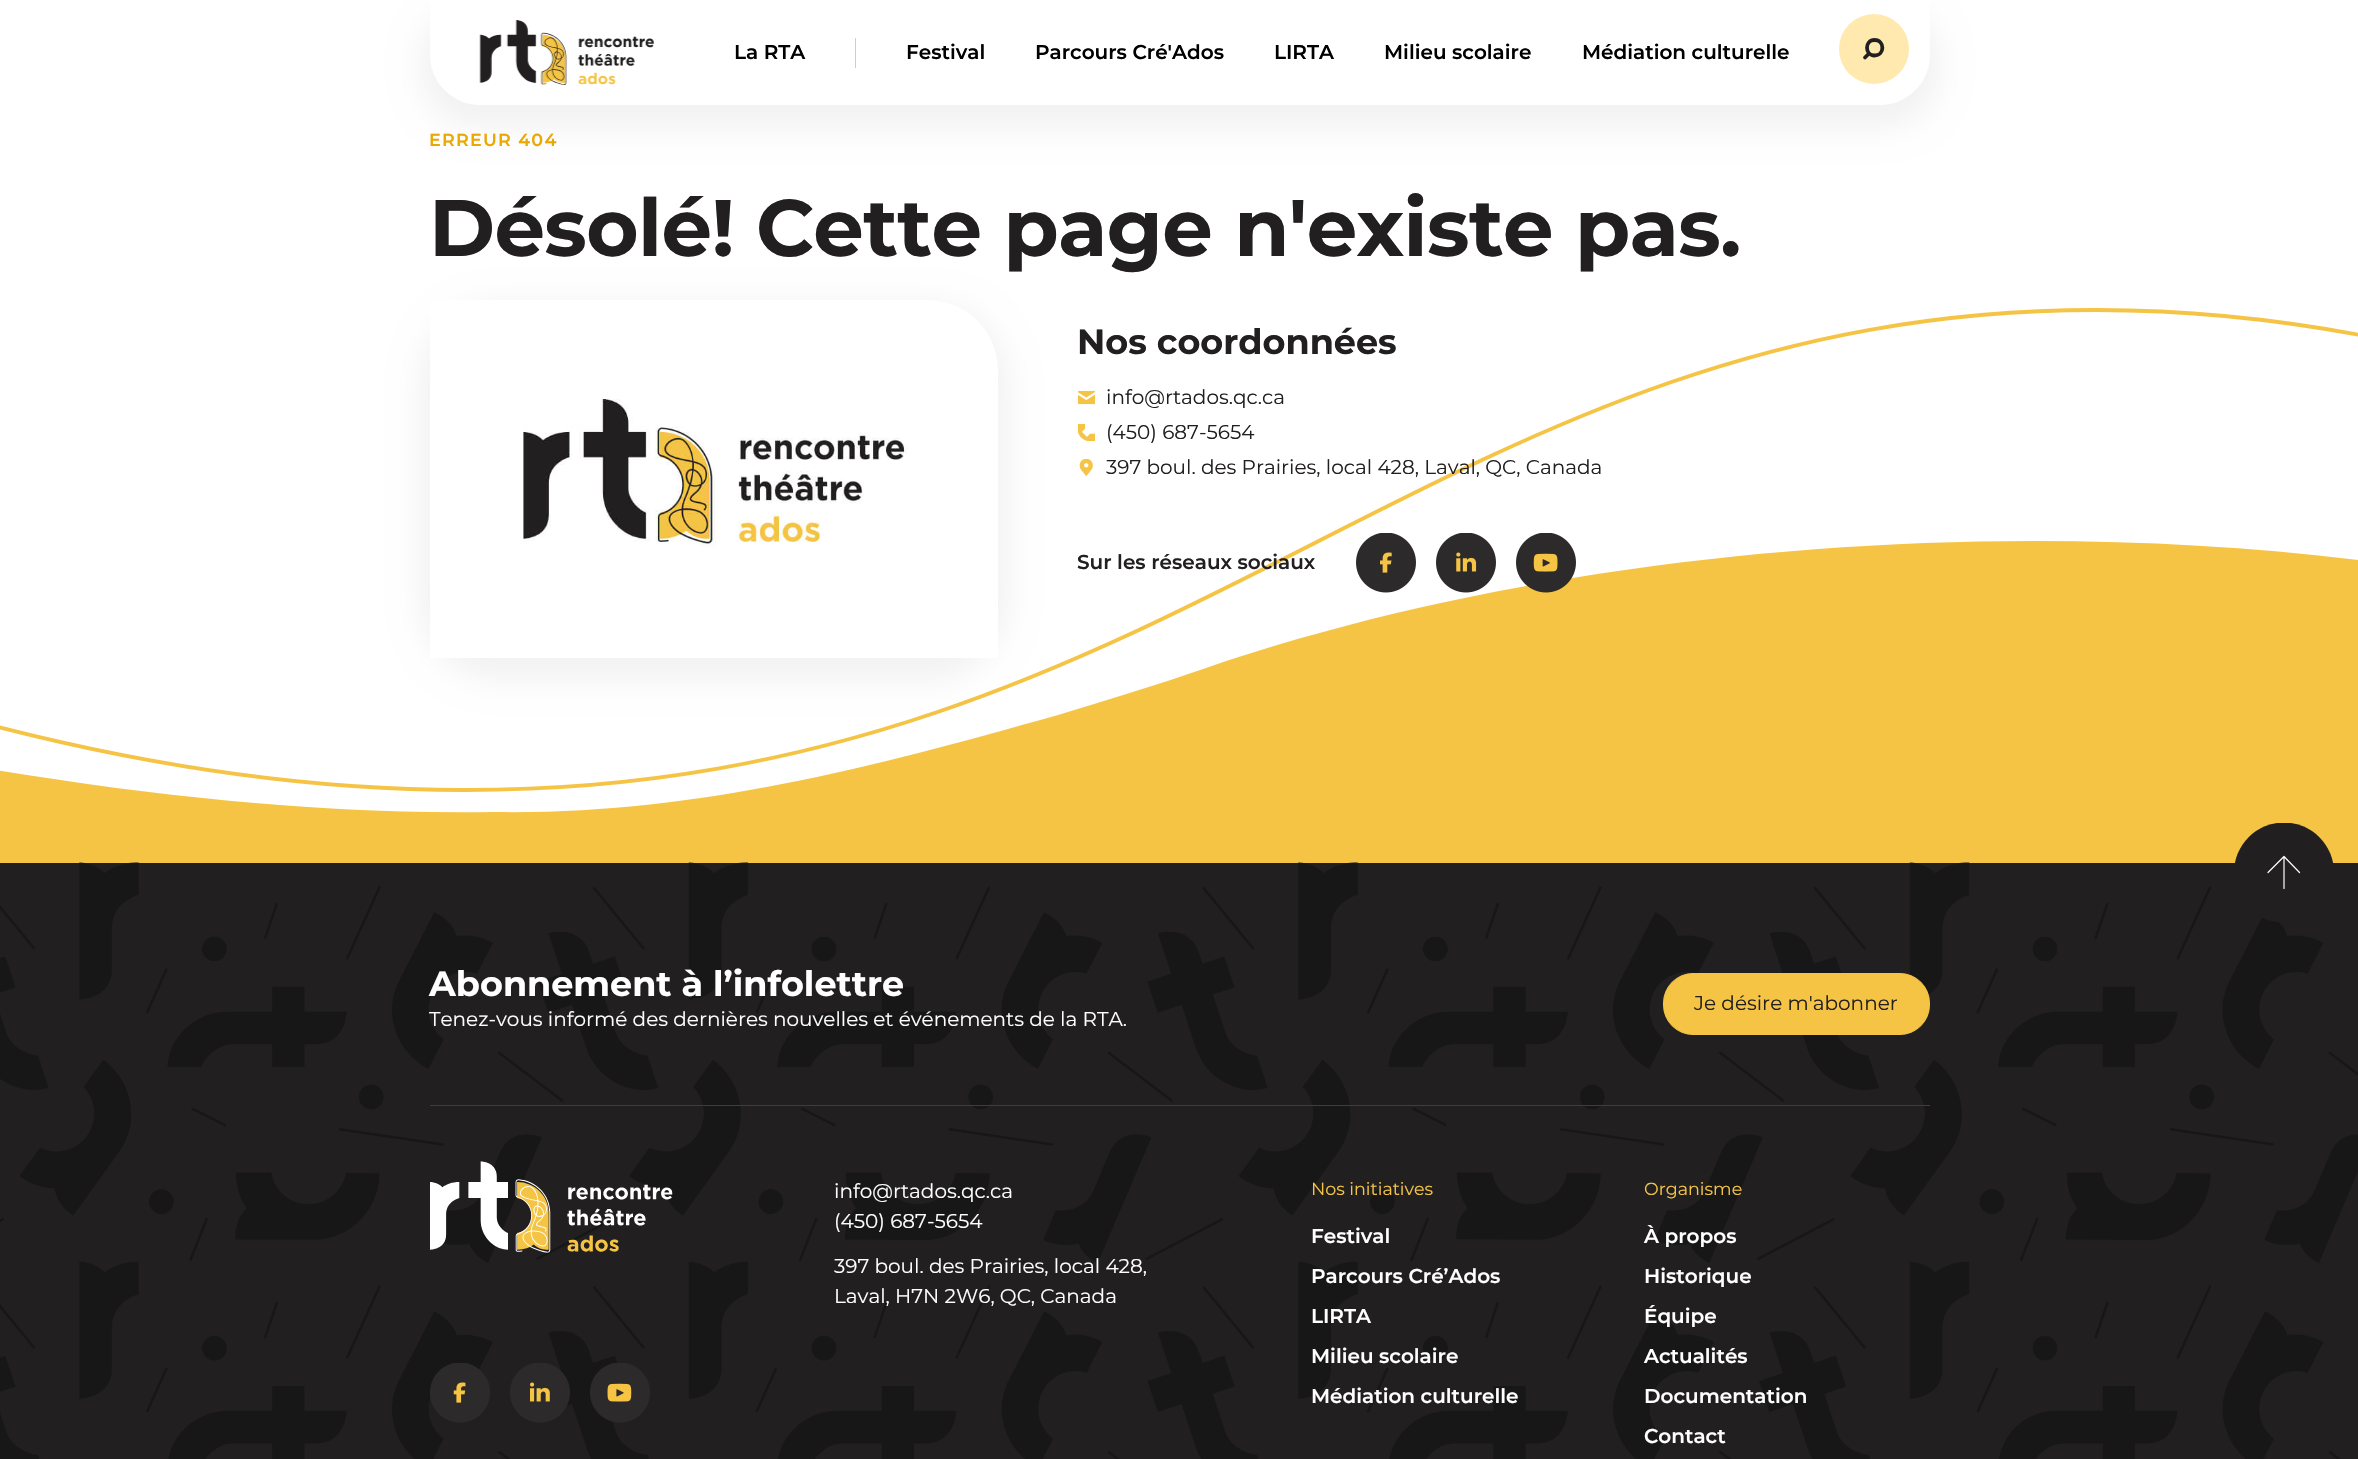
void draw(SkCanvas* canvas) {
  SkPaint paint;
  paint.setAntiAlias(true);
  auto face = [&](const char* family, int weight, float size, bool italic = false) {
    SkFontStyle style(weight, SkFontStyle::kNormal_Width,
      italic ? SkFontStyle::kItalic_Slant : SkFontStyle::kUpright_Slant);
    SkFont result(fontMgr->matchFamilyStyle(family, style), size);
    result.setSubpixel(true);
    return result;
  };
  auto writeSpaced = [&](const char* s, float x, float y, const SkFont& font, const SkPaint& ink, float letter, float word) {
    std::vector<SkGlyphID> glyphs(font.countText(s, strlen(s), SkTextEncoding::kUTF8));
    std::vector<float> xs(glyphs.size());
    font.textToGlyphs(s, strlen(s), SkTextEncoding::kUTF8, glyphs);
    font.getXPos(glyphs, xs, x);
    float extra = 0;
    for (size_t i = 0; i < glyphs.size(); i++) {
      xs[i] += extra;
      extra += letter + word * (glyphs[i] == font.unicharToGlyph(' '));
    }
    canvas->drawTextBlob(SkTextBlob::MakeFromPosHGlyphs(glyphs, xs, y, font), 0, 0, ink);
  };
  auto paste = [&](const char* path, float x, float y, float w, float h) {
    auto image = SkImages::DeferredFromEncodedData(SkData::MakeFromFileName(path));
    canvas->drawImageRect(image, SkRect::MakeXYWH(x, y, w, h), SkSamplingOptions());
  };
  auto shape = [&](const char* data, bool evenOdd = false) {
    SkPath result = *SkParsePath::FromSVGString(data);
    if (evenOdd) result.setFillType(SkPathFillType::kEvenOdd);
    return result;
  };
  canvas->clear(0xffffffff);
  paint.setColor(0x0d000000);
  paint.setMaskFilter(SkMaskFilter::MakeBlur(kNormal_SkBlurStyle, 15));
  canvas->drawRoundRect(SkRect::MakeXYWH(420, 3, 1520, 125), 60, 60, paint);
  paint.setMaskFilter(nullptr);
  paint.setColor(0xffffffff);
  canvas->drawRoundRect(SkRect::MakeXYWH(430, -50, 1500, 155), 50, 50, paint);
  paste("img/1.png", 479, 20, 175, 65);
  paint.setColor(0xffcdcdcd);
  canvas->drawRect(SkRect::MakeXYWH(855, 38, 1, 30), paint);
  paint.setColor(0xffffe9ae);
  canvas->drawCircle(1874, 49, 35, paint);
  paint.setStroke(true);
  paint.setStrokeWidth(3.8f);
  paint.setStrokeCap(SkPaint::kSquare_Cap);
  paint.setStrokeJoin(SkPaint::kRound_Join);
  paint.setColor(0xff221f20);
  canvas->drawPath(shape("M1874.5 55.5C1864.5 55.5 1864.5 40 1874.5 40C1885 40 1885 55.5 1874.5 55.5Z"), paint);
  paint.setStrokeCap(SkPaint::kRound_Cap);
  canvas->drawPath(shape("M1865 57.5L1869 53.5"), paint);
  paint.setStroke(false);
  paint.setColor(0xfff5c445);
  canvas->drawPath(shape("M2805 664C2345 491 1672 508 1206 668C1157 685 1107 700 1058 715C863 770 689 815 494 812C176 817-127 750-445 685V866H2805Z"), paint);
  paint.setStroke(true);
  paint.setStrokeCap(SkPaint::kButt_Cap);
  paint.setStrokeJoin(SkPaint::kMiter_Join);
  canvas->drawPath(shape("M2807 477.5C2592.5 386 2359.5 310 2096.5 310H2096C1435 310 1181 790 464.5 790C136 790-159 689-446 580"), paint);
  canvas->save();
  canvas->clipPath(shape("M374 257H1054V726H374ZM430 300H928C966.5 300 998 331.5 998 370V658H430Z", true), true);
  paint.setStroke(false);
  paint.setColor(0x0d000000);
  paint.setMaskFilter(SkMaskFilter::MakeBlur(kNormal_SkBlurStyle, 15));
  canvas->drawRoundRect(SkRect::MakeXYWH(420, 303, 588, 377), 80, 80, paint);
  paint.setMaskFilter(nullptr);
  canvas->restore();
  paste("img/2.png", 523, 399, 385, 149);
  paste("img/3.png", 1078, 390, 17, 15);
  paste("img/4.png", 1078, 424, 17, 17);
  paste("img/5.png", 1079, 459, 14, 17);
  paste("img/6.png", 1356, 533, 60, 60);
  paste("img/7.png", 1436, 533, 60, 60);
  paste("img/8.png", 1516, 533, 60, 60);
  paint.setColor(0xff221f20);
  canvas->drawRect(SkRect::MakeXYWH(0, 863, 2358, 596), paint);
  paste("img/9.png", 0, 862, 2358, 597);
  canvas->save();
  canvas->clipRect(SkRect::MakeXYWH(2234, 823, 100, 100));
  canvas->drawCircle(2284, 872.5f, 50, paint);
  canvas->restore();
  paint.setStroke(true);
  paint.setStrokeWidth(1.2f);
  paint.setStrokeCap(SkPaint::kRound_Cap);
  paint.setStrokeJoin(SkPaint::kRound_Join);
  paint.setColor(0xffffffff);
  canvas->drawPath(shape("M2284 888.5V856.5M2268 872.5L2284 856.5L2299.5 872.5"), paint);
  paint.setStroke(false);
  paint.setColor(0xff3e3e3e);
  canvas->drawRect(SkRect::MakeXYWH(430, 1105, 1500, 1), paint);
  paint.setColor(0xfff5c445);
  canvas->drawRoundRect(SkRect::MakeXYWH(1663.5f, 973.5f, 266, 61), 29.5f, 29.5f, paint);
  paint.setStroke(true);
  paint.setStrokeWidth(1);
  paint.setStrokeCap(SkPaint::kButt_Cap);
  paint.setStrokeJoin(SkPaint::kMiter_Join);
  canvas->drawRoundRect(SkRect::MakeXYWH(1663.5f, 973.5f, 266, 61), 29.5f, 29.5f, paint);
  paste("img/10.png", 430, 1161, 243, 92);
  paste("img/11.png", 430, 1363, 60, 60);
  paste("img/12.png", 510, 1363, 60, 60);
  paste("img/13.png", 590, 1363, 60, 60);
  auto f0 = face("Montserrat", 600, 20);
  paint.setStroke(false);
  paint.setColor(0xff000000);
  {
    const struct { const char* s; float x, y; } items[] = {
      {"La RTA", 734, 59},
      {"Festival", 906, 59},
      {"Parcours Cré'Ados", 1035, 59},
      {"LIRTA", 1274, 59},
      {"Milieu scolaire", 1384, 59},
      {"Médiation culturelle", 1582, 59},
    };
    for (auto [s, x, y] : items) {
      canvas->drawString(s, x, y, f0, paint);
    }
  }
  auto f1 = face("Montserrat", 600, 17.5f);
  paint.setColor(0xffeaa800);
  writeSpaced("ERREUR 404", 429, 146, f1, paint, 1.25f, 0);
  auto f2 = face("Montserrat", 700, 80);
  paint.setColor(0xff221f20);
  writeSpaced("Désolé! Cette page n'existe pas.", 429, 256, f2, paint, -0.6f, 0);
  auto f3 = face("Montserrat", 700, 35);
  canvas->drawString("Nos coordonnées", 1077, 354, f3, paint);
  auto f4 = face("Montserrat", 400, 20);
  {
    const struct { const char* s; float x, y; } items[] = {
      {"info@rtados.qc.ca", 1106, 404},
      {"(450) 687-5654", 1106, 439},
      {"397 boul. des Prairies, local 428, Laval, QC, Canada", 1106, 474},
    };
    for (auto [s, x, y] : items) {
      canvas->drawString(s, x, y, f4, paint);
    }
  }
  canvas->drawString("Sur les réseaux sociaux", 1077, 569, f0, paint);
  paint.setColor(0xffffffff);
  canvas->drawString("Abonnement à l’infolettre", 429, 996, f3, paint);
  canvas->drawString("Tenez-vous informé des dernières nouvelles et événements de la RTA.", 429, 1026, f4, paint);
  paint.setColor(0xff221f20);
  canvas->drawString("Je désire m'abonner", 1694, 1010, f4, paint);
  paint.setColor(0xffffffff);
  {
    const struct { const char* s; float x, y; } items[] = {
      {"info@rtados.qc.ca", 834, 1198},
      {"(450) 687-5654", 834, 1228},
      {"397 boul. des Prairies, local 428,", 834, 1273},
      {"Laval, H7N 2W6, QC, Canada", 834, 1303},
    };
    for (auto [s, x, y] : items) {
      canvas->drawString(s, x, y, f4, paint);
    }
  }
  auto f5 = face("Montserrat", 400, 17.5f);
  paint.setColor(0xfff5c445);
  canvas->drawString("Nos initiatives", 1311, 1195, f5, paint);
  paint.setColor(0xffffffff);
  {
    const struct { const char* s; float x, y; } items[] = {
      {"Festival", 1311, 1243},
      {"Parcours Cré’Ados", 1311, 1283},
      {"LIRTA", 1311, 1323},
      {"Milieu scolaire", 1311, 1363},
      {"Médiation culturelle", 1311, 1403},
    };
    for (auto [s, x, y] : items) {
      canvas->drawString(s, x, y, f0, paint);
    }
  }
  paint.setColor(0xfff5c445);
  canvas->drawString("Organisme", 1644, 1195, f5, paint);
  paint.setColor(0xffffffff);
  {
    const struct { const char* s; float x, y; } items[] = {
      {"À propos", 1644, 1243},
      {"Historique", 1644, 1283},
      {"Équipe", 1644, 1323},
      {"Actualités", 1644, 1363},
      {"Documentation", 1644, 1403},
      {"Contact", 1644, 1443},
    };
    for (auto [s, x, y] : items) {
      canvas->drawString(s, x, y, f0, paint);
    }
  }
}
